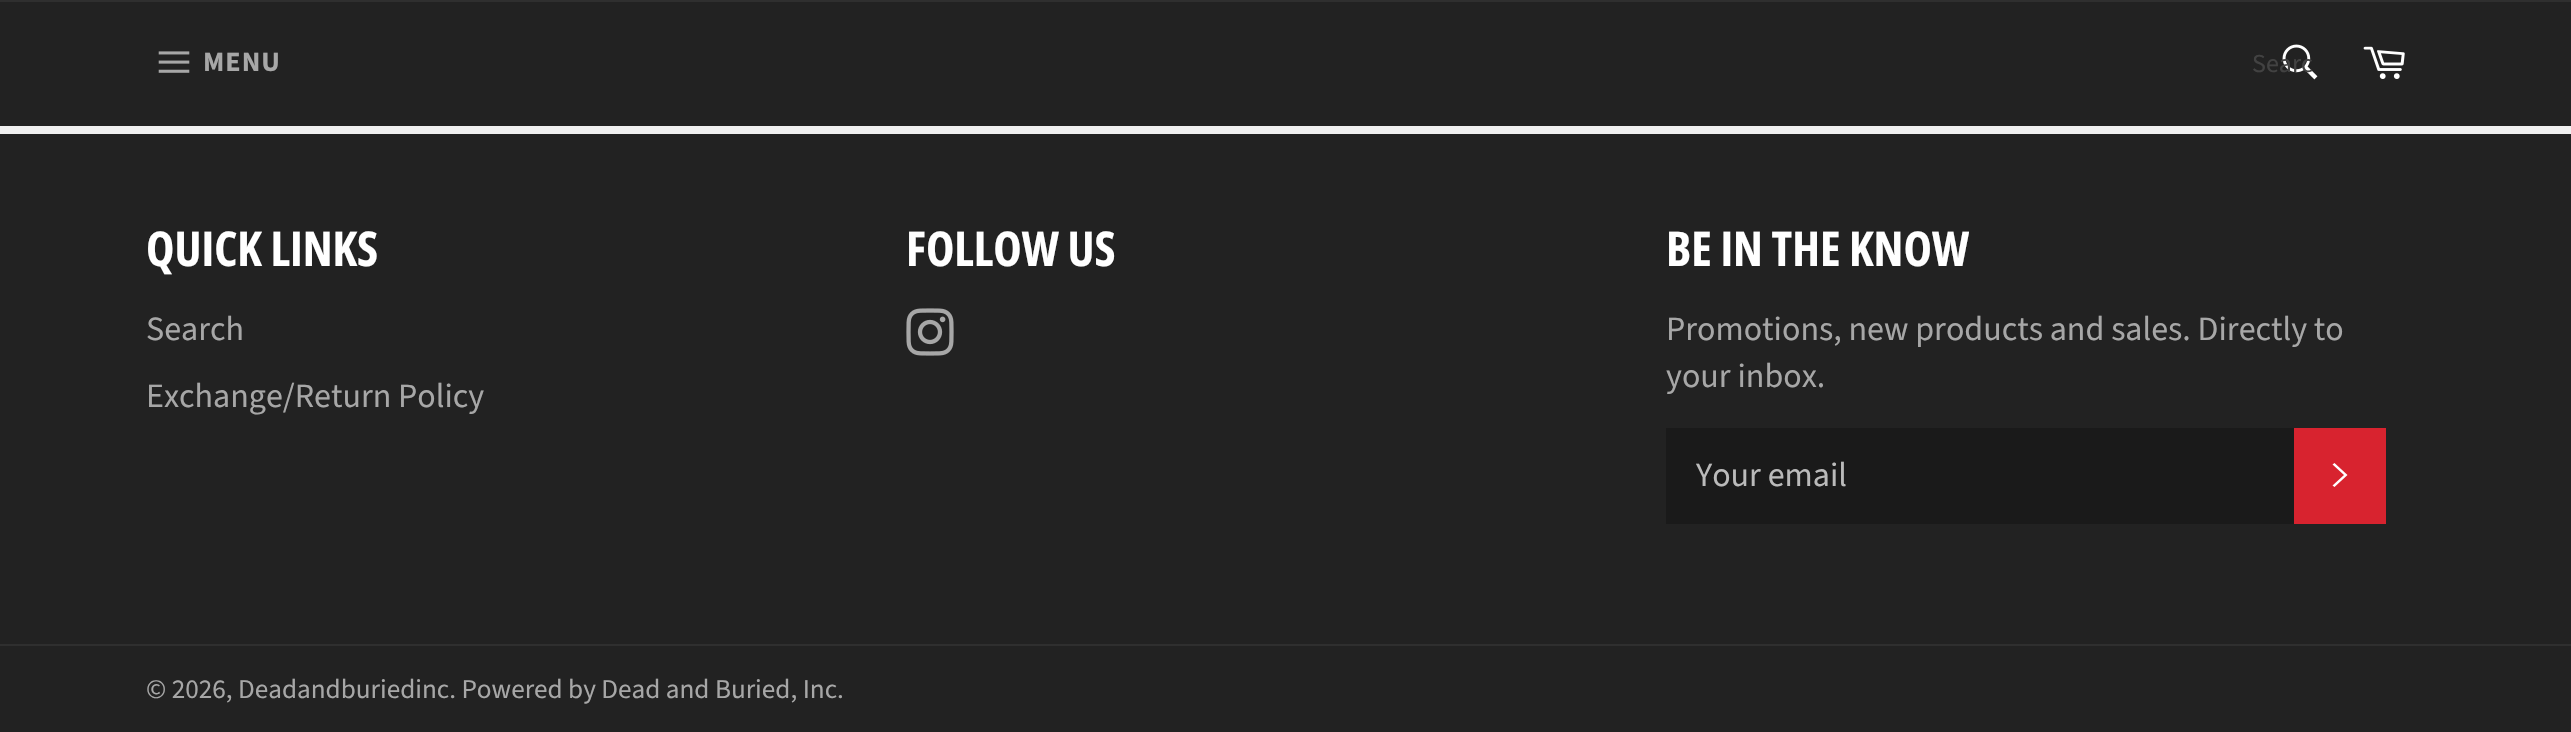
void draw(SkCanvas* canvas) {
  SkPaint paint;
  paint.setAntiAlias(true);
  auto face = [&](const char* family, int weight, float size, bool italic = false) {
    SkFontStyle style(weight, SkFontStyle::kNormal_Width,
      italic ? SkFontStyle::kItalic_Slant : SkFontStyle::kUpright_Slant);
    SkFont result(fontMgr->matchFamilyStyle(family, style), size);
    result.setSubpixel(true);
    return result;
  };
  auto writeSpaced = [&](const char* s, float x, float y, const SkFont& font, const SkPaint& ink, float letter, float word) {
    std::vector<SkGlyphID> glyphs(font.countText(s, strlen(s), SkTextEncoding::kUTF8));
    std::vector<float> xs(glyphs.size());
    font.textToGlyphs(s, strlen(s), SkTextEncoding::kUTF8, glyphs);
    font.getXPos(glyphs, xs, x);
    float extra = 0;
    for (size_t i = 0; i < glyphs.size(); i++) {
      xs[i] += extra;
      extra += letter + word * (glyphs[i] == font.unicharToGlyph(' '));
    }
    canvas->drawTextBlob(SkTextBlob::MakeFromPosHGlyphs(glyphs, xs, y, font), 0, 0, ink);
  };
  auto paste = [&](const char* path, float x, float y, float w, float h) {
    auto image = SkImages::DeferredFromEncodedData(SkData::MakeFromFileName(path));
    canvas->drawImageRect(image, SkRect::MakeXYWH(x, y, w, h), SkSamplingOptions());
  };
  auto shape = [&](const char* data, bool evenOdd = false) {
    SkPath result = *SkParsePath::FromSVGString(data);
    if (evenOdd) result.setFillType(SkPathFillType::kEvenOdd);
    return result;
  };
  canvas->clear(0xfff0f0f0);
  paint.setColor(0xff222222);
  canvas->drawRect(SkRect::MakeXYWH(0, 2, 2571, 124), paint);
  paint.setColor(0xff2f2f2f);
  canvas->drawRect(SkRect::MakeXYWH(0, 0, 2571, 2), paint);
  paste("img/1.png", 158, 51, 32, 22);
  paste("img/2.png", 2282, 44, 36, 36);
  paste("img/3.png", 2363, 46, 42, 33);
  paint.setColor(0xff222222);
  canvas->drawRect(SkRect::MakeXYWH(0, 134, 2571, 598), paint);
  paste("img/4.png", 906, 308, 48, 48);
  paint.setColor(0xff1a1a1a);
  canvas->drawRect(SkRect::MakeXYWH(1666, 428, 628, 96), paint);
  paint.setColor(0xffd8232f);
  canvas->drawRect(SkRect::MakeXYWH(2294, 428, 92, 96), paint);
  paint.setColor(0xffffffff);
  canvas->drawPath(shape("M2332.5 464.5L2334.5 463L2347.5 475L2334.5 487L2332.5 485.5L2344 475Z"), paint);
  paint.setColor(0xff2f2f2f);
  canvas->drawRect(SkRect::MakeXYWH(0, 644, 2571, 2), paint);
  auto f0 = face("Source Sans Pro", 700, 28);
  paint.setColor(0xffa7a7a7);
  writeSpaced("MENU", 203, 71, f0, paint, 1, 0);
  auto f1 = face("Source Sans Pro", 400, 26);
  paint.setColor(0xff424242);
  canvas->drawString("Searc", 2252, 72, f1, paint);
  auto f2 = face("Open Sans Condensed", 700, 48);
  paint.setColor(0xffffffff);
  canvas->drawString("QUICK LINKS", 146, 266, f2, paint);
  auto f3 = face("Source Sans Pro", 400, 34);
  paint.setColor(0xffa7a7a7);
  canvas->drawString("Search", 146, 340, f3, paint);
  canvas->drawString("Exchange/Return Policy", 146, 407, f3, paint);
  paint.setColor(0xffffffff);
  canvas->drawString("FOLLOW US", 906, 266, f2, paint);
  canvas->drawString("BE IN THE KNOW", 1666, 266, f2, paint);
  paint.setColor(0xffa7a7a7);
  canvas->drawString("Promotions, new products and sales. Directly to", 1666, 340, f3, paint);
  canvas->drawString("your inbox.", 1666, 387, f3, paint);
  paint.setColor(0xffbababa);
  canvas->drawString("Your email", 1696, 486, f3, paint);
  auto f4 = face("Source Sans Pro", 400, 27.2f);
  paint.setColor(0xffa7a7a7);
  canvas->drawString("© 2026, Deadandburiedinc. Powered by Dead and Buried, Inc.", 146, 698, f4, paint);
}
